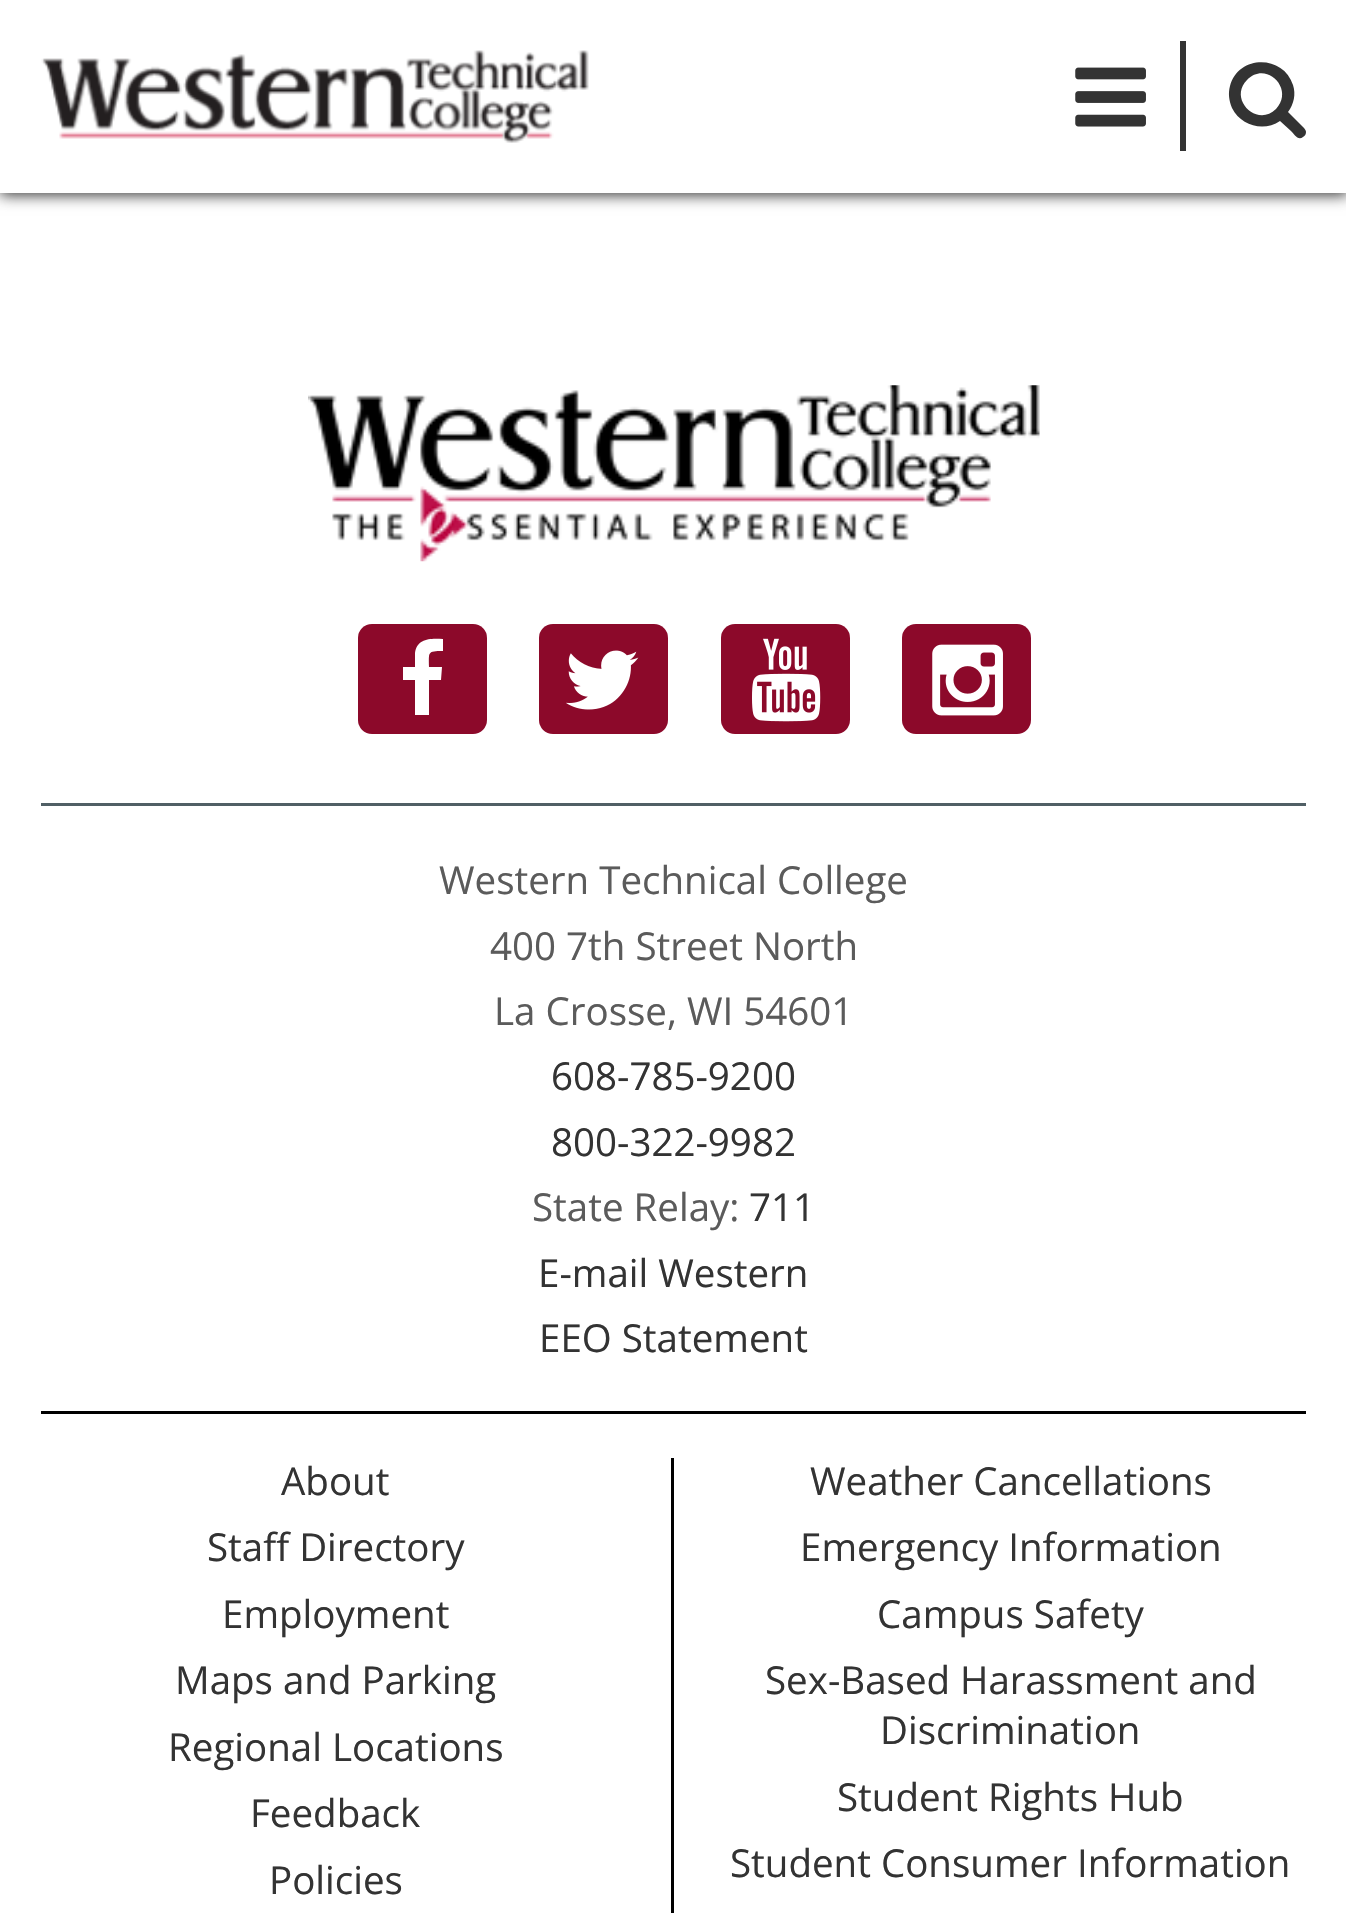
void draw(SkCanvas* canvas) {
  SkPaint paint;
  paint.setAntiAlias(true);
  auto face = [&](const char* family, int weight, float size, bool italic = false) {
    SkFontStyle style(weight, SkFontStyle::kNormal_Width,
      italic ? SkFontStyle::kItalic_Slant : SkFontStyle::kUpright_Slant);
    SkFont result(fontMgr->matchFamilyStyle(family, style), size);
    result.setSubpixel(true);
    return result;
  };
  auto paste = [&](const char* path, float x, float y, float w, float h) {
    auto image = SkImages::DeferredFromEncodedData(SkData::MakeFromFileName(path));
    canvas->drawImageRect(image, SkRect::MakeXYWH(x, y, w, h), SkSamplingOptions());
  };
  auto shape = [&](const char* data, bool evenOdd = false) {
    SkPath result = *SkParsePath::FromSVGString(data);
    if (evenOdd) result.setFillType(SkPathFillType::kEvenOdd);
    return result;
  };
  canvas->clear(0xffffffff);
  canvas->save();
  canvas->clipPath(shape("M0 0H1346V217H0ZM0 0H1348V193H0Z", true), true);
  paint.setColor(0xff333333);
  paint.setMaskFilter(SkMaskFilter::MakeBlur(kNormal_SkBlurStyle, 7));
  canvas->drawRect(SkRect::MakeXYWH(0, 3, 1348, 192), paint);
  paint.setMaskFilter(nullptr);
  canvas->restore();
  paint.setColor(0xe6ffffff);
  canvas->drawRect(SkRect::MakeXYWH(0, 192, 1346, 1), paint);
  paste("img/1.png", 41, 50, 548, 93);
  paint.setColor(0xff333333);
  canvas->drawRect(SkRect::MakeXYWH(1180, 41, 6, 110), paint);
  paste("img/2.png", 1075, 67, 71, 60);
  canvas->drawPath(shape("M1276 109C1295 89 1266 60 1247 80C1228 99 1257 128 1276 109ZM1306 132C1306 134 1305 136 1303 137C1298 141 1294 134 1291 131L1280 121C1264 132 1241 126 1232 108C1229 101 1228 93 1230 86C1238 55 1283 54 1293 85C1296 94 1294 104 1288 112L1304 128C1305 129 1306 131 1306 132Z"), paint);
  paint.setColor(0xff505f65);
  canvas->drawRect(SkRect::MakeXYWH(41, 803, 1265, 3), paint);
  paste("img/3.png", 308, 385, 732, 177);
  paint.setColor(0xff8c092a);
  canvas->drawRoundRect(SkRect::MakeXYWH(358, 624, 129, 110), 14, 14, paint);
  paint.setColor(0xffffffff);
  canvas->drawPath(shape("M443 639V651C427 651 429 652 429 667H442L441 680H429V715H415V680H403V667H415V653C417 638 431 638 443 639Z"), paint);
  paint.setColor(0xff8c092a);
  canvas->drawRoundRect(SkRect::MakeXYWH(539, 624, 129, 110), 14, 14, paint);
  paste("img/4.png", 566, 650, 73, 60);
  canvas->drawRoundRect(SkRect::MakeXYWH(721, 624, 129, 110), 14, 14, paint);
  paste("img/5.png", 752, 638, 69, 84);
  canvas->drawRoundRect(SkRect::MakeXYWH(902, 624, 129, 110), 14, 14, paint);
  paste("img/6.png", 932, 644, 71, 72);
  paint.setColor(0xff000000);
  canvas->drawRect(SkRect::MakeXYWH(41, 1411, 1265, 3), paint);
  canvas->drawRect(SkRect::MakeXYWH(671, 1458, 3, 455), paint);
  auto f0 = face("Open Sans", 400, 38.5f);
  paint.setColor(0xff5b5b5b);
  {
    const struct { const char* s; float x, y; } items[] = {
      {"Western Technical College", 439, 894},
      {"400 7th Street North", 490, 960},
      {"La Crosse, WI 54601", 494, 1025},
    };
    for (auto [s, x, y] : items) {
      canvas->drawString(s, x, y, f0, paint);
    }
  }
  paint.setColor(0xff333333);
  canvas->drawString("608-785-9200", 551, 1090, f0, paint);
  canvas->drawString("800-322-9982", 551, 1156, f0, paint);
  paint.setColor(0xff5b5b5b);
  canvas->drawString("State Relay:", 532, 1221, f0, paint);
  paint.setColor(0xff333333);
  {
    const struct { const char* s; float x, y; } items[] = {
      {"711", 749, 1221},
      {"E-mail Western", 538, 1287},
      {"EEO Statement", 539, 1352},
      {"About", 281, 1495},
      {"Staff Directory", 207, 1561},
      {"Employment", 222, 1628},
      {"Maps and Parking", 175, 1694},
      {"Regional Locations", 168, 1761},
      {"Feedback", 250, 1827},
      {"Policies", 269, 1894},
      {"Weather Cancellations", 810, 1495},
      {"Emergency Information", 800, 1561},
      {"Campus Safety", 877, 1628},
      {"Sex-Based Harassment and", 765, 1694},
      {"Discrimination", 880, 1744},
      {"Student Rights Hub", 837, 1811},
      {"Student Consumer Information", 730, 1877},
    };
    for (auto [s, x, y] : items) {
      canvas->drawString(s, x, y, f0, paint);
    }
  }
}
